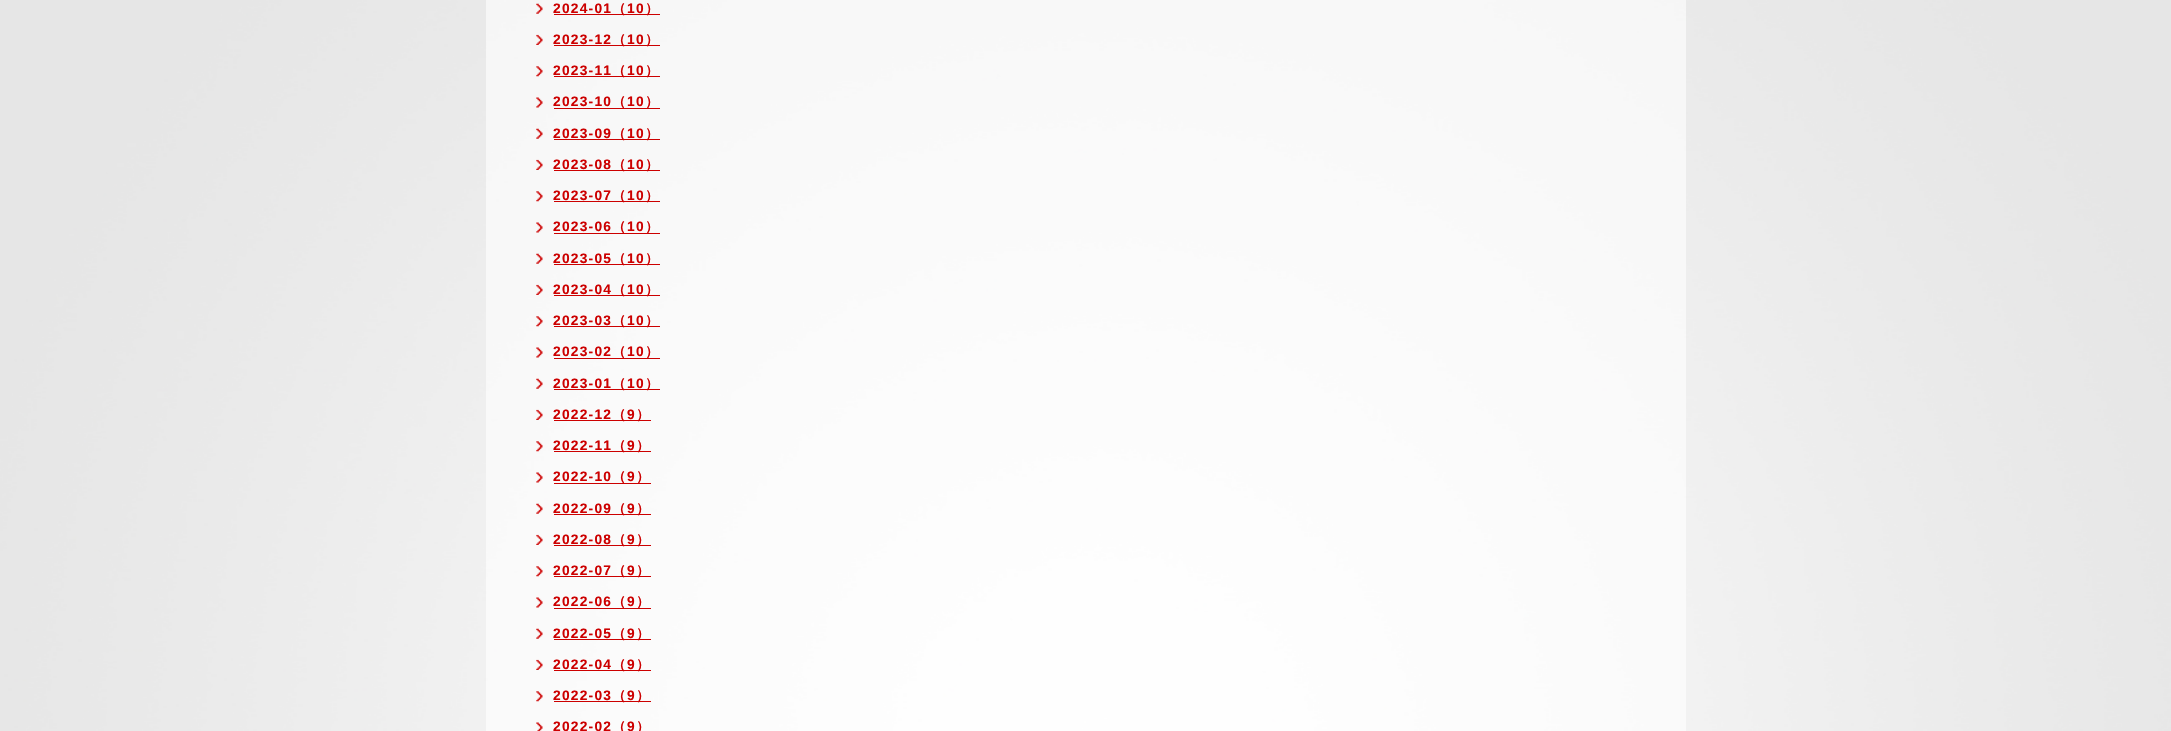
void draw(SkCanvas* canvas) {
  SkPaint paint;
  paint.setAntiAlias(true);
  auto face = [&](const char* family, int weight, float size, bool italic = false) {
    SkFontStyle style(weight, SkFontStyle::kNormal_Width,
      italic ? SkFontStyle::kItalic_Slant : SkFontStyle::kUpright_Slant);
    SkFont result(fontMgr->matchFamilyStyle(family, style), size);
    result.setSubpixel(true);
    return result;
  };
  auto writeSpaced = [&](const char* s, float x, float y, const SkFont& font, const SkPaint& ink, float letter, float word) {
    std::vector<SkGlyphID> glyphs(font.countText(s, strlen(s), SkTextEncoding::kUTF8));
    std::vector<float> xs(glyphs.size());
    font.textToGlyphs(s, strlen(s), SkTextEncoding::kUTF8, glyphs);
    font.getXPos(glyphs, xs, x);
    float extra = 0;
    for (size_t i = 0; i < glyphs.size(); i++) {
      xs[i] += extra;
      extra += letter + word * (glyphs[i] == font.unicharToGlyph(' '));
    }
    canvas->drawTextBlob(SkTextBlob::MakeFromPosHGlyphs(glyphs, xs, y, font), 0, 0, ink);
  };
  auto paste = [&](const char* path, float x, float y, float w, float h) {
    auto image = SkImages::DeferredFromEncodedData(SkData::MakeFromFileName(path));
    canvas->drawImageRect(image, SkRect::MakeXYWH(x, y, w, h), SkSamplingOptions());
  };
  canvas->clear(0xffffffff);
  paste("img/1.png", 0, 0, 2171, 731);
  paint.setColor(0x99ffffff);
  canvas->drawRect(SkRect::MakeXYWH(486, 0, 1200, 731), paint);
  paste("img/2.png", 536, 3, 7, 11);
  paint.setColor(0xffcc0000);
  canvas->drawRect(SkRect::MakeXYWH(554, 14, 106, 1), paint);
  paste("img/3.png", 536, 34, 7, 11);
  canvas->drawRect(SkRect::MakeXYWH(554, 45, 106, 1), paint);
  paste("img/4.png", 536, 66, 7, 11);
  canvas->drawRect(SkRect::MakeXYWH(554, 76, 106, 1), paint);
  paste("img/5.png", 536, 97, 7, 11);
  canvas->drawRect(SkRect::MakeXYWH(554, 108, 106, 1), paint);
  paste("img/6.png", 536, 128, 7, 11);
  canvas->drawRect(SkRect::MakeXYWH(554, 139, 106, 1), paint);
  paste("img/7.png", 536, 159, 7, 11);
  canvas->drawRect(SkRect::MakeXYWH(554, 170, 106, 1), paint);
  paste("img/8.png", 536, 191, 7, 11);
  canvas->drawRect(SkRect::MakeXYWH(554, 201, 106, 1), paint);
  paste("img/9.png", 536, 222, 7, 11);
  canvas->drawRect(SkRect::MakeXYWH(554, 233, 106, 1), paint);
  paste("img/10.png", 536, 253, 7, 11);
  canvas->drawRect(SkRect::MakeXYWH(554, 264, 106, 1), paint);
  paste("img/11.png", 536, 284, 7, 11);
  canvas->drawRect(SkRect::MakeXYWH(554, 295, 106, 1), paint);
  paste("img/12.png", 536, 316, 7, 11);
  canvas->drawRect(SkRect::MakeXYWH(554, 326, 106, 1), paint);
  paste("img/13.png", 536, 347, 7, 11);
  canvas->drawRect(SkRect::MakeXYWH(554, 358, 106, 1), paint);
  paste("img/14.png", 536, 378, 7, 11);
  canvas->drawRect(SkRect::MakeXYWH(554, 389, 106, 1), paint);
  paste("img/15.png", 536, 409, 7, 11);
  canvas->drawRect(SkRect::MakeXYWH(554, 420, 97, 1), paint);
  paste("img/16.png", 536, 441, 7, 11);
  canvas->drawRect(SkRect::MakeXYWH(554, 451, 97, 1), paint);
  paste("img/17.png", 536, 472, 7, 11);
  canvas->drawRect(SkRect::MakeXYWH(554, 483, 97, 1), paint);
  paste("img/18.png", 536, 503, 7, 11);
  canvas->drawRect(SkRect::MakeXYWH(554, 514, 97, 1), paint);
  paste("img/19.png", 536, 534, 7, 11);
  canvas->drawRect(SkRect::MakeXYWH(554, 545, 97, 1), paint);
  paste("img/20.png", 536, 566, 7, 11);
  canvas->drawRect(SkRect::MakeXYWH(554, 576, 97, 1), paint);
  paste("img/21.png", 536, 597, 7, 11);
  canvas->drawRect(SkRect::MakeXYWH(554, 608, 97, 1), paint);
  paste("img/22.png", 536, 628, 7, 11);
  canvas->drawRect(SkRect::MakeXYWH(554, 639, 97, 1), paint);
  paste("img/23.png", 536, 659, 7, 11);
  canvas->drawRect(SkRect::MakeXYWH(554, 670, 97, 1), paint);
  paste("img/24.png", 536, 691, 7, 11);
  canvas->drawRect(SkRect::MakeXYWH(554, 701, 97, 1), paint);
  paste("img/25.png", 536, 722, 7, 9);
  auto f0 = face("Liberation Sans", 700, 13.75f);
  writeSpaced("2024-01", 553, 13, f0, paint, 1.25f, 0);
  auto f1 = face("WenQuanYi Zen Hei", 700, 13.75f);
  writeSpaced("（", 612, 13, f1, paint, 1.25f, 0);
  writeSpaced("10", 627, 13, f0, paint, 1.25f, 0);
  writeSpaced("）", 645, 13, f1, paint, 1.25f, 0);
  writeSpaced("2023-12", 553, 44, f0, paint, 1.25f, 0);
  writeSpaced("（", 612, 44, f1, paint, 1.25f, 0);
  writeSpaced("10", 627, 44, f0, paint, 1.25f, 0);
  writeSpaced("）", 645, 44, f1, paint, 1.25f, 0);
  writeSpaced("2023-11", 553, 75, f0, paint, 1.25f, 0);
  writeSpaced("（", 612, 75, f1, paint, 1.25f, 0);
  writeSpaced("10", 627, 75, f0, paint, 1.25f, 0);
  writeSpaced("）", 645, 75, f1, paint, 1.25f, 0);
  writeSpaced("2023-10", 553, 106, f0, paint, 1.25f, 0);
  writeSpaced("（", 612, 106, f1, paint, 1.25f, 0);
  writeSpaced("10", 627, 106, f0, paint, 1.25f, 0);
  writeSpaced("）", 645, 106, f1, paint, 1.25f, 0);
  writeSpaced("2023-09", 553, 138, f0, paint, 1.25f, 0);
  writeSpaced("（", 612, 138, f1, paint, 1.25f, 0);
  writeSpaced("10", 627, 138, f0, paint, 1.25f, 0);
  writeSpaced("）", 645, 138, f1, paint, 1.25f, 0);
  writeSpaced("2023-08", 553, 169, f0, paint, 1.25f, 0);
  writeSpaced("（", 612, 169, f1, paint, 1.25f, 0);
  writeSpaced("10", 627, 169, f0, paint, 1.25f, 0);
  writeSpaced("）", 645, 169, f1, paint, 1.25f, 0);
  writeSpaced("2023-07", 553, 200, f0, paint, 1.25f, 0);
  writeSpaced("（", 612, 200, f1, paint, 1.25f, 0);
  writeSpaced("10", 627, 200, f0, paint, 1.25f, 0);
  writeSpaced("）", 645, 200, f1, paint, 1.25f, 0);
  writeSpaced("2023-06", 553, 231, f0, paint, 1.25f, 0);
  writeSpaced("（", 612, 231, f1, paint, 1.25f, 0);
  writeSpaced("10", 627, 231, f0, paint, 1.25f, 0);
  writeSpaced("）", 645, 231, f1, paint, 1.25f, 0);
  writeSpaced("2023-05", 553, 263, f0, paint, 1.25f, 0);
  writeSpaced("（", 612, 263, f1, paint, 1.25f, 0);
  writeSpaced("10", 627, 263, f0, paint, 1.25f, 0);
  writeSpaced("）", 645, 263, f1, paint, 1.25f, 0);
  writeSpaced("2023-04", 553, 294, f0, paint, 1.25f, 0);
  writeSpaced("（", 612, 294, f1, paint, 1.25f, 0);
  writeSpaced("10", 627, 294, f0, paint, 1.25f, 0);
  writeSpaced("）", 645, 294, f1, paint, 1.25f, 0);
  writeSpaced("2023-03", 553, 325, f0, paint, 1.25f, 0);
  writeSpaced("（", 612, 325, f1, paint, 1.25f, 0);
  writeSpaced("10", 627, 325, f0, paint, 1.25f, 0);
  writeSpaced("）", 645, 325, f1, paint, 1.25f, 0);
  writeSpaced("2023-02", 553, 356, f0, paint, 1.25f, 0);
  writeSpaced("（", 612, 356, f1, paint, 1.25f, 0);
  writeSpaced("10", 627, 356, f0, paint, 1.25f, 0);
  writeSpaced("）", 645, 356, f1, paint, 1.25f, 0);
  writeSpaced("2023-01", 553, 388, f0, paint, 1.25f, 0);
  writeSpaced("（", 612, 388, f1, paint, 1.25f, 0);
  writeSpaced("10", 627, 388, f0, paint, 1.25f, 0);
  writeSpaced("）", 645, 388, f1, paint, 1.25f, 0);
  writeSpaced("2022-12", 553, 419, f0, paint, 1.25f, 0);
  writeSpaced("（", 612, 419, f1, paint, 1.25f, 0);
  writeSpaced("9", 627, 419, f0, paint, 1.25f, 0);
  writeSpaced("）", 636, 419, f1, paint, 1.25f, 0);
  writeSpaced("2022-11", 553, 450, f0, paint, 1.25f, 0);
  writeSpaced("（", 612, 450, f1, paint, 1.25f, 0);
  writeSpaced("9", 627, 450, f0, paint, 1.25f, 0);
  writeSpaced("）", 636, 450, f1, paint, 1.25f, 0);
  writeSpaced("2022-10", 553, 481, f0, paint, 1.25f, 0);
  writeSpaced("（", 612, 481, f1, paint, 1.25f, 0);
  writeSpaced("9", 627, 481, f0, paint, 1.25f, 0);
  writeSpaced("）", 636, 481, f1, paint, 1.25f, 0);
  writeSpaced("2022-09", 553, 513, f0, paint, 1.25f, 0);
  writeSpaced("（", 612, 513, f1, paint, 1.25f, 0);
  writeSpaced("9", 627, 513, f0, paint, 1.25f, 0);
  writeSpaced("）", 636, 513, f1, paint, 1.25f, 0);
  writeSpaced("2022-08", 553, 544, f0, paint, 1.25f, 0);
  writeSpaced("（", 612, 544, f1, paint, 1.25f, 0);
  writeSpaced("9", 627, 544, f0, paint, 1.25f, 0);
  writeSpaced("）", 636, 544, f1, paint, 1.25f, 0);
  writeSpaced("2022-07", 553, 575, f0, paint, 1.25f, 0);
  writeSpaced("（", 612, 575, f1, paint, 1.25f, 0);
  writeSpaced("9", 627, 575, f0, paint, 1.25f, 0);
  writeSpaced("）", 636, 575, f1, paint, 1.25f, 0);
  writeSpaced("2022-06", 553, 606, f0, paint, 1.25f, 0);
  writeSpaced("（", 612, 606, f1, paint, 1.25f, 0);
  writeSpaced("9", 627, 606, f0, paint, 1.25f, 0);
  writeSpaced("）", 636, 606, f1, paint, 1.25f, 0);
  writeSpaced("2022-05", 553, 638, f0, paint, 1.25f, 0);
  writeSpaced("（", 612, 638, f1, paint, 1.25f, 0);
  writeSpaced("9", 627, 638, f0, paint, 1.25f, 0);
  writeSpaced("）", 636, 638, f1, paint, 1.25f, 0);
  writeSpaced("2022-04", 553, 669, f0, paint, 1.25f, 0);
  writeSpaced("（", 612, 669, f1, paint, 1.25f, 0);
  writeSpaced("9", 627, 669, f0, paint, 1.25f, 0);
  writeSpaced("）", 636, 669, f1, paint, 1.25f, 0);
  writeSpaced("2022-03", 553, 700, f0, paint, 1.25f, 0);
  writeSpaced("（", 612, 700, f1, paint, 1.25f, 0);
  writeSpaced("9", 627, 700, f0, paint, 1.25f, 0);
  writeSpaced("）", 636, 700, f1, paint, 1.25f, 0);
  writeSpaced("2022-02", 553, 731, f0, paint, 1.25f, 0);
  writeSpaced("（", 612, 731, f1, paint, 1.25f, 0);
  writeSpaced("9", 627, 731, f0, paint, 1.25f, 0);
  writeSpaced("）", 636, 731, f1, paint, 1.25f, 0);
}
